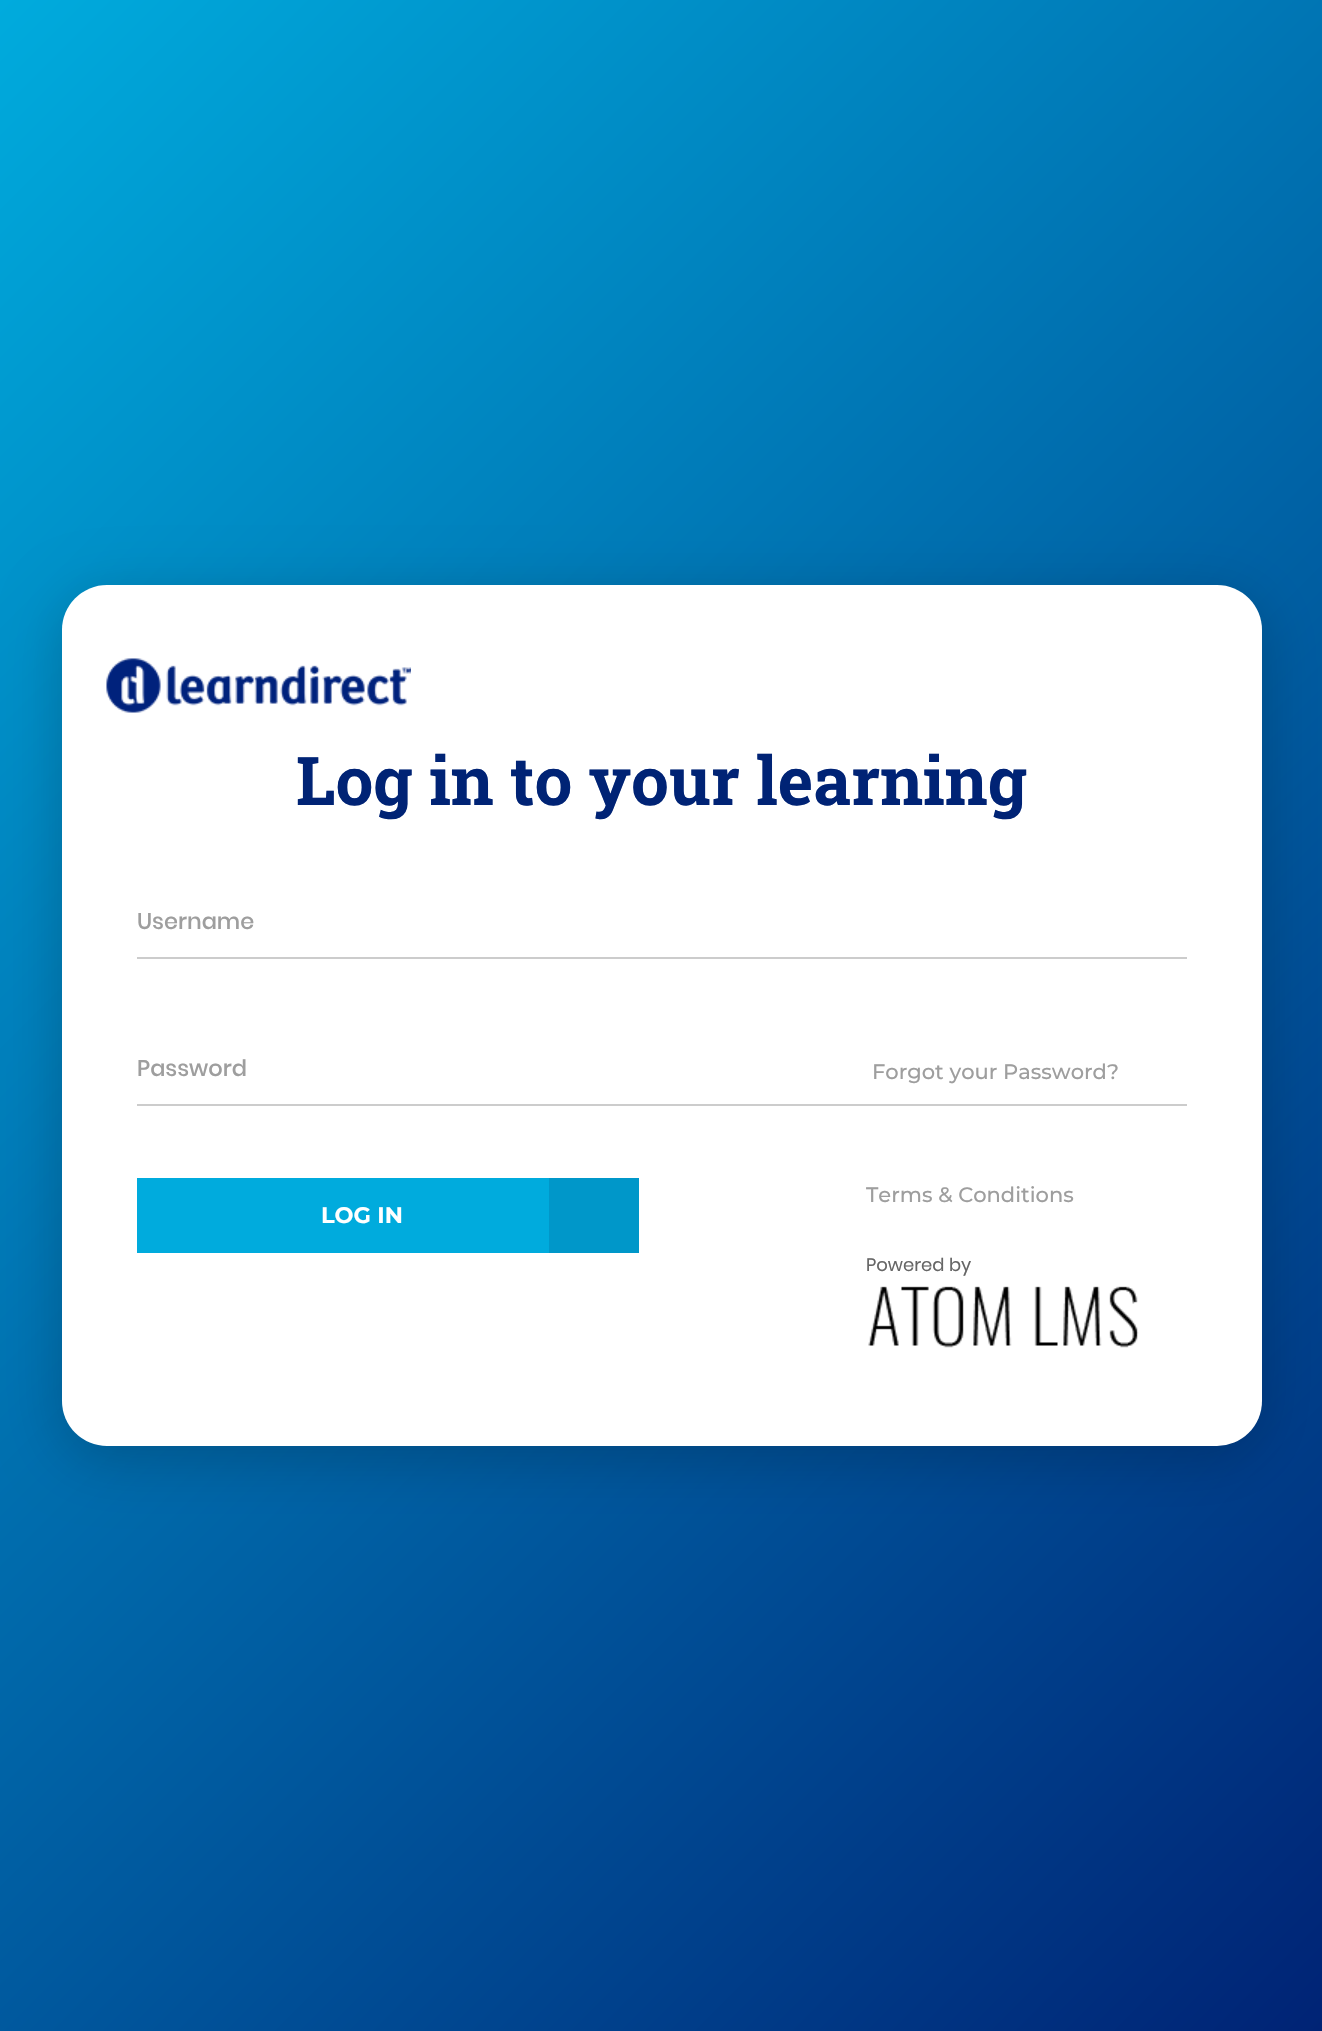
void draw(SkCanvas* canvas) {
  SkPaint paint;
  paint.setAntiAlias(true);
  auto face = [&](const char* family, int weight, float size, bool italic = false) {
    SkFontStyle style(weight, SkFontStyle::kNormal_Width,
      italic ? SkFontStyle::kItalic_Slant : SkFontStyle::kUpright_Slant);
    SkFont result(fontMgr->matchFamilyStyle(family, style), size);
    result.setSubpixel(true);
    return result;
  };
  auto paste = [&](const char* path, float x, float y, float w, float h) {
    auto image = SkImages::DeferredFromEncodedData(SkData::MakeFromFileName(path));
    canvas->drawImageRect(image, SkRect::MakeXYWH(x, y, w, h), SkSamplingOptions());
  };
  canvas->clear(0xffffffff);
  {
    const SkColor colors[] = {0xff00abdd, 0xff002375};
    const float stops[] = {0, 1};
    const SkPoint ends[] = {{-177, 177}, {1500, 1854}};
    paint.setShader(SkGradientShader::MakeLinear(ends, colors, stops, 2, SkTileMode::kClamp));
    paint.setAlpha(255);
  }
  canvas->drawRect(SkRect::MakeXYWH(0, 0, 1322, 2031), paint);
  paint.setShader(nullptr);
  paint.setColor(0x33000000);
  paint.setMaskFilter(SkMaskFilter::MakeBlur(kNormal_SkBlurStyle, 30));
  canvas->drawRoundRect(SkRect::MakeXYWH(62, 597, 1200, 861), 45, 45, paint);
  paint.setMaskFilter(nullptr);
  paint.setColor(0xffffffff);
  canvas->drawRoundRect(SkRect::MakeXYWH(62, 585, 1200, 861), 45, 45, paint);
  paste("img/1.png", 106, 658, 305, 55);
  {
    const struct { float x, y, w, h; SkColor color; } items[] = {
      {137, 957, 1050, 2, 0xffcccccc},
      {137, 1104, 1050, 2, 0xffcccccc},
      {137, 1178, 412, 75, 0xff00abdd},
      {549, 1178, 90, 75, 0xff0097c9},
    };
    for (auto [x, y, w, h, color] : items) {
      paint.setColor(color);
      canvas->drawRect(SkRect::MakeXYWH(x, y, w, h), paint);
    }
  }
  paste("img/2.png", 868, 1286, 271, 62);
  auto f0 = face("Roboto Slab", 700, 67.25f);
  paint.setColor(0xff002375);
  canvas->drawString("Log in to your learning", 296, 805, f0, paint);
  auto f1 = face("Poppins", 500, 22.5f);
  paint.setColor(0xff9e9e9e);
  canvas->drawString("Username", 137, 929, f1, paint);
  canvas->drawString("Password", 137, 1076, f1, paint);
  auto f2 = face("Montserrat", 500, 21);
  canvas->drawString("Forgot your Password?", 872, 1079, f2, paint);
  auto f3 = face("Montserrat", 700, 22.5f);
  paint.setColor(0xffffffff);
  canvas->drawString("LOG IN", 321, 1223, f3, paint);
  paint.setColor(0xff9e9e9e);
  canvas->drawString("Terms & Conditions", 866, 1202, f2, paint);
  auto f4 = face("Poppins", 400, 18);
  paint.setColor(0xff666666);
  canvas->drawString("Powered by", 866, 1271, f4, paint);
}
